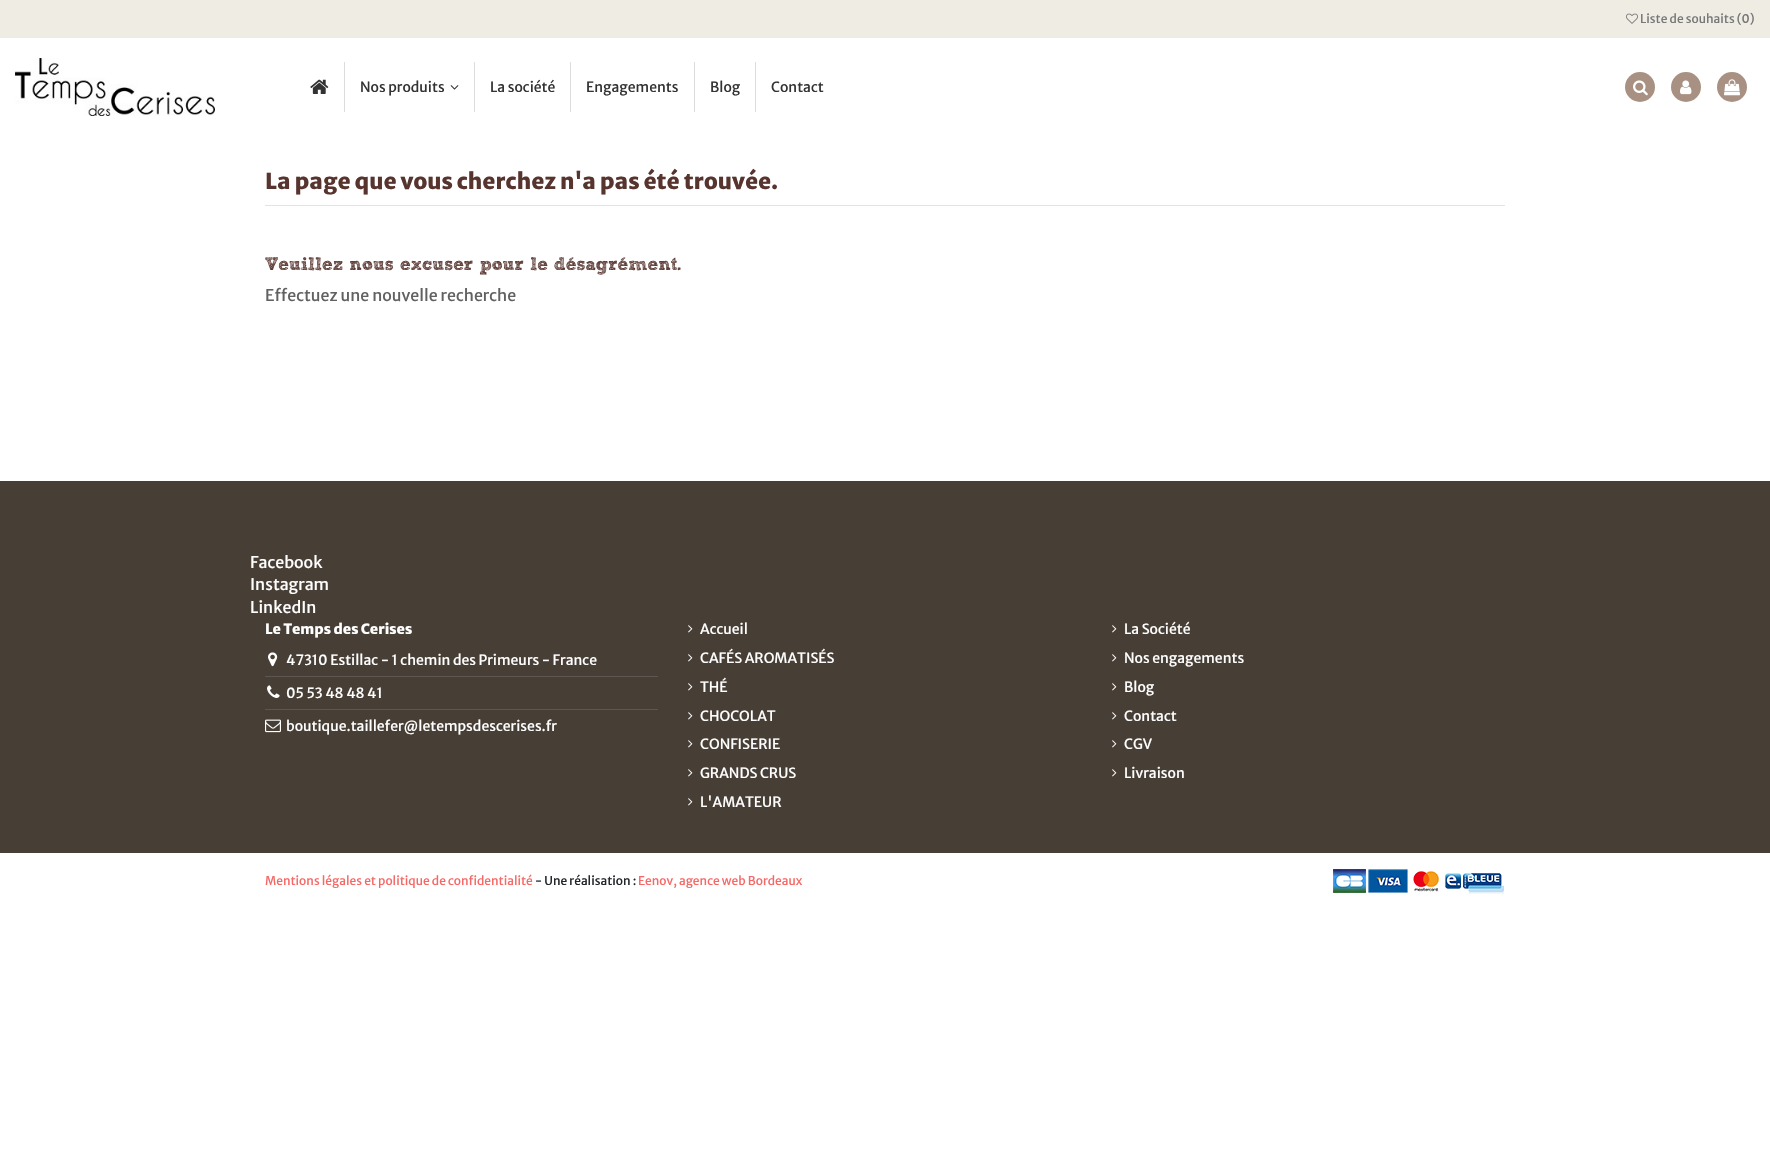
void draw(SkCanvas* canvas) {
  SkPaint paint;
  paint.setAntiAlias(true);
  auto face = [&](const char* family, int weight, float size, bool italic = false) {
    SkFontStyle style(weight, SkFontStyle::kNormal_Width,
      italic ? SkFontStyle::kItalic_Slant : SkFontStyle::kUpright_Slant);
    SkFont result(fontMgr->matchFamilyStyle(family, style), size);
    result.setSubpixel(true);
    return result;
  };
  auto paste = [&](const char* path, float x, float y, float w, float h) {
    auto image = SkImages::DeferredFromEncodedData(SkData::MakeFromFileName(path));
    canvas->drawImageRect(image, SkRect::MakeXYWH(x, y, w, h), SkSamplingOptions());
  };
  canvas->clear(0xffffffff);
  paint.setColor(0xffefece4);
  canvas->drawRect(SkRect::MakeXYWH(0, 0, 1770, 38), paint);
  paste("img/1.png", 1626, 13, 12, 11);
  paste("img/2.png", 15, 58, 200, 58);
  paste("img/3.png", 310, 79, 19, 15);
  paint.setColor(0xffdcdcdc);
  canvas->drawRect(SkRect::MakeXYWH(344, 62, 1, 50), paint);
  paste("img/4.png", 450, 85, 9, 5);
  {
    const struct { float x, y, w, h; SkColor color; } items[] = {
      {474, 62, 1, 50, 0xffdcdcdc},
      {570, 62, 1, 50, 0xffdcdcdc},
      {694, 62, 1, 50, 0xffdcdcdc},
      {755, 62, 1, 50, 0xffdcdcdc},
    };
    for (auto [x, y, w, h, color] : items) {
      paint.setColor(color);
      canvas->drawRect(SkRect::MakeXYWH(x, y, w, h), paint);
    }
  }
  paint.setColor(0xffa89182);
  canvas->drawCircle(1640, 87, 15, paint);
  paste("img/5.png", 1633, 80, 15, 16);
  canvas->drawCircle(1686, 87, 15, paint);
  paste("img/6.png", 1680, 80, 12, 15);
  canvas->drawCircle(1732, 87, 15, paint);
  paste("img/7.png", 1724, 79, 16, 17);
  paint.setColor(0xffe3e3e3);
  canvas->drawRect(SkRect::MakeXYWH(265, 205, 1240, 1), paint);
  paint.setColor(0xff473e36);
  canvas->drawRect(SkRect::MakeXYWH(0, 481, 1770, 372), paint);
  paste("img/8.png", 268, 652, 10, 15);
  paint.setColor(0xff5e5751);
  canvas->drawRect(SkRect::MakeXYWH(265, 676, 393, 1), paint);
  paste("img/9.png", 267, 685, 13, 13);
  canvas->drawRect(SkRect::MakeXYWH(265, 709, 393, 1), paint);
  paste("img/10.png", 265, 719, 16, 14);
  paste("img/11.png", 688, 625, 5, 8);
  paste("img/11.png", 688, 654, 5, 8);
  paste("img/11.png", 688, 683, 5, 8);
  paste("img/11.png", 688, 712, 5, 8);
  paste("img/11.png", 688, 740, 5, 8);
  paste("img/11.png", 688, 769, 5, 8);
  paste("img/11.png", 688, 798, 5, 8);
  paste("img/11.png", 1112, 625, 5, 8);
  paste("img/11.png", 1112, 654, 5, 8);
  paste("img/11.png", 1112, 683, 5, 8);
  paste("img/11.png", 1112, 712, 5, 8);
  paste("img/11.png", 1112, 740, 5, 8);
  paste("img/11.png", 1112, 769, 5, 8);
  paste("img/12.png", 1333, 869, 171, 25);
  auto f0 = face("Merriweather Sans", 400, 12);
  paint.setColor(0xff777777);
  canvas->drawString("Liste de souhaits (0)", 1640, 23, f0, paint);
  auto f1 = face("Merriweather Sans", 400, 14);
  paint.setColor(0xff333333);
  {
    const struct { const char* s; float x, y; } items[] = {
      {"Nos produits", 360, 92},
      {"La société", 490, 92},
      {"Engagements", 586, 92},
      {"Blog", 710, 92},
      {"Contact", 771, 92},
    };
    for (auto [s, x, y] : items) {
      canvas->drawString(s, x, y, f1, paint);
    }
  }
  auto f2 = face("Merriweather Sans", 800, 22);
  paint.setColor(0xff57342e);
  canvas->drawString("La page que vous cherchez n'a pas été trouvée.", 265, 189, f2, paint);
  auto f3 = face("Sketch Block", 700, 18);
  canvas->drawString("Veuillez nous excuser pour le désagrément.", 265, 270, f3, paint);
  auto f4 = face("Merriweather Sans", 400, 16);
  paint.setColor(0xff616161);
  canvas->drawString("Effectuez une nouvelle recherche", 265, 301, f4, paint);
  paint.setColor(0xffffffff);
  {
    const struct { const char* s; float x, y; } items[] = {
      {"Facebook", 250, 568},
      {"Instagram", 250, 590},
      {"LinkedIn", 250, 613},
    };
    for (auto [s, x, y] : items) {
      canvas->drawString(s, x, y, f4, paint);
    }
  }
  auto f5 = face("Merriweather Sans", 800, 14);
  canvas->drawString("Le Temps des Cerises", 265, 634, f5, paint);
  {
    const struct { const char* s; float x, y; } items[] = {
      {"47310 Estillac - 1 chemin des Primeurs - France", 286, 665},
      {"05 53 48 48 41", 286, 698},
      {"boutique.taillefer@letempsdescerises.fr", 286, 731},
      {"Accueil", 700, 634},
      {"CAFÉS AROMATISÉS", 700, 663},
      {"THÉ", 700, 692},
      {"CHOCOLAT", 700, 721},
      {"CONFISERIE", 700, 749},
      {"GRANDS CRUS", 700, 778},
      {"L'AMATEUR", 700, 807},
      {"La Société", 1124, 634},
      {"Nos engagements", 1124, 663},
      {"Blog", 1124, 692},
      {"Contact", 1124, 721},
      {"CGV", 1124, 749},
      {"Livraison", 1124, 778},
    };
    for (auto [s, x, y] : items) {
      canvas->drawString(s, x, y, f1, paint);
    }
  }
  paint.setColor(0xfff66866);
  canvas->drawString("Mentions légales et politique de confidentialité", 265, 885, f0, paint);
  paint.setColor(0xff212529);
  canvas->drawString("- Une réalisation :", 535, 885, f0, paint);
  paint.setColor(0xfff66866);
  canvas->drawString("Eenov, agence web Bordeaux", 638, 885, f0, paint);
}
